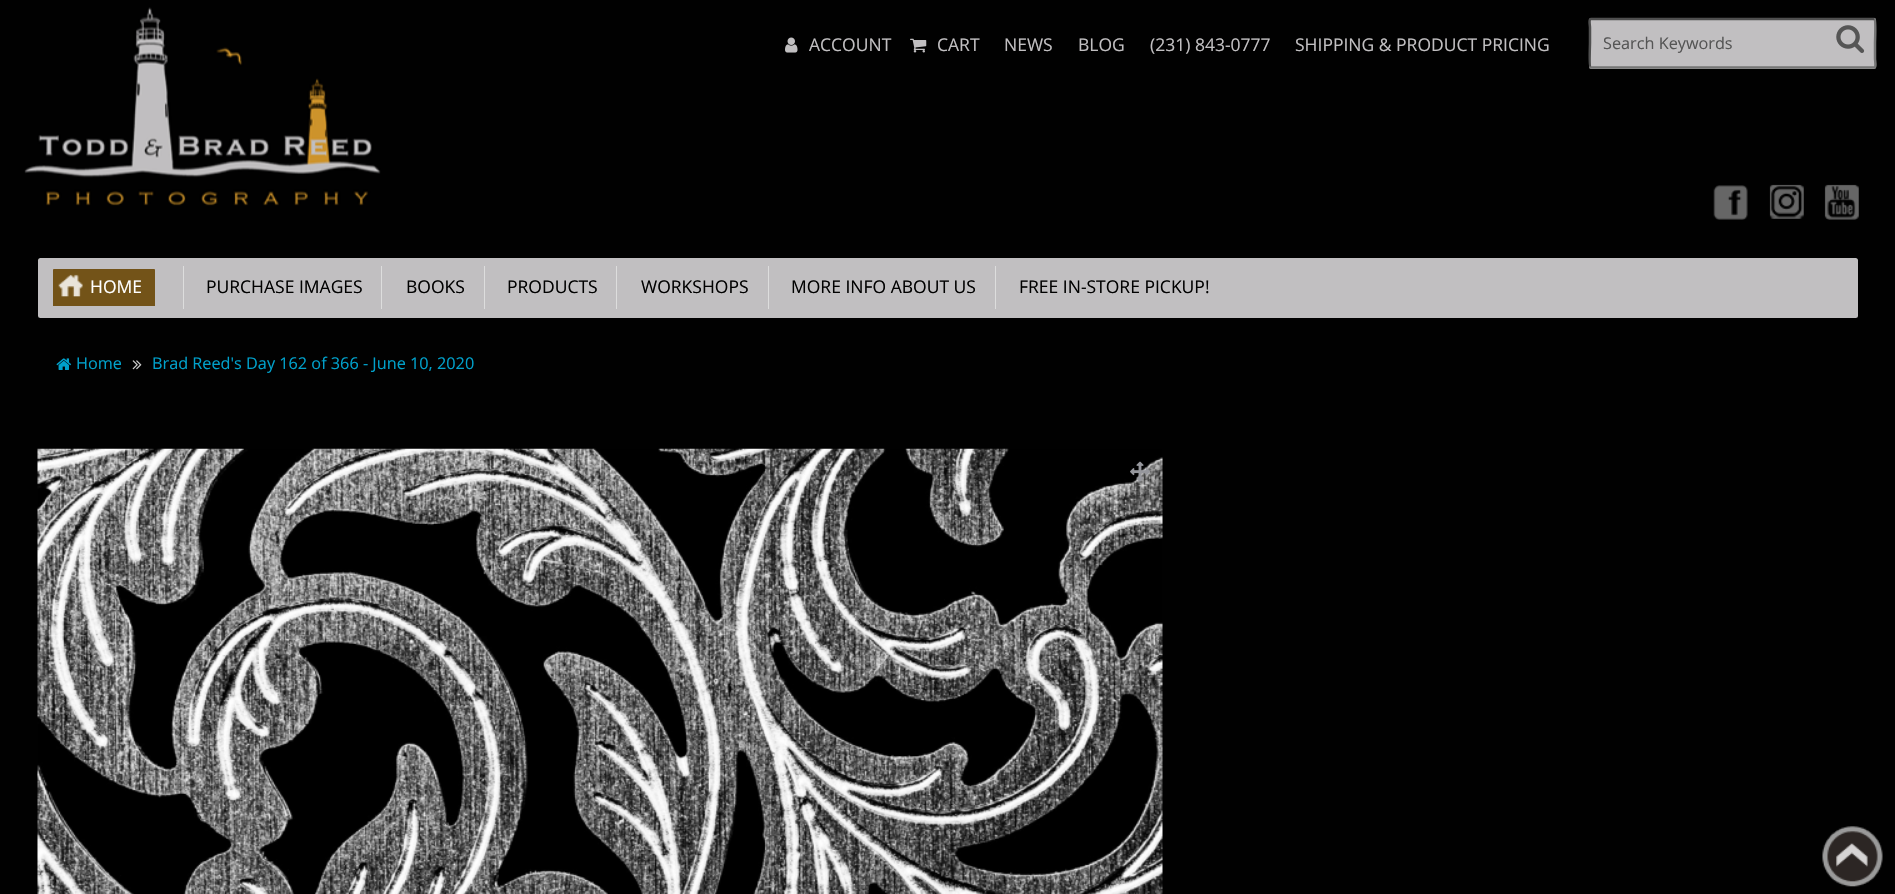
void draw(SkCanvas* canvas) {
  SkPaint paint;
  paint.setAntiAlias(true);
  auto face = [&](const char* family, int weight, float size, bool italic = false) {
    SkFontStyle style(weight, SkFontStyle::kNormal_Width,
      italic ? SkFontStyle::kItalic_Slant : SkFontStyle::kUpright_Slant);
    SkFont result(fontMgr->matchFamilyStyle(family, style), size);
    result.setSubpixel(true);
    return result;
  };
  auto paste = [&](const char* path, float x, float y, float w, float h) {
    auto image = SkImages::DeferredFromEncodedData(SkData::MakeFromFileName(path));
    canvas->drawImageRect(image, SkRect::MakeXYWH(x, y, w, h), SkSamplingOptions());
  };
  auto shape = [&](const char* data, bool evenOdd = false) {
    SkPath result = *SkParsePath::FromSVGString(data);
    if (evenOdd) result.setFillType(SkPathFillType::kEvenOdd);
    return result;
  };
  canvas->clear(0xff010101);
  paste("img/1.png", 24, 7, 357, 199);
  paste("img/2.png", 785, 37, 13, 16);
  paste("img/3.png", 910, 38, 17, 15);
  paint.setColor(0xffc1bfc1);
  canvas->drawRoundRect(SkRect::MakeXYWH(1589, 18, 287, 51), 2.5f, 2.5f, paint);
  paint.setStroke(true);
  paint.setStrokeWidth(2.5f);
  paint.setColor(0xff767676);
  canvas->drawPath(shape("M1874.5 19C1876 20.5 1875 40.5 1875 43V58.5C1875 61 1876.5 67.5 1874 67.5H1591L1590.5 67"), paint);
  paint.setColor(0xff4f4f4f);
  canvas->drawPath(shape("M1590.5 67C1589 66 1590 46 1590 43V27.5C1590 25.5 1588.5 19 1591 19H1874H1874.5"), paint);
  paste("img/4.png", 1836, 25, 29, 28);
  paste("img/5.png", 1713, 185, 35, 35);
  paste("img/6.png", 1769, 184, 35, 35);
  paste("img/7.png", 1824, 184, 35, 36);
  paint.setStroke(false);
  paint.setColor(0xffc1bfc1);
  canvas->drawRoundRect(SkRect::MakeXYWH(38, 258, 1820, 60), 2.5f, 2.5f, paint);
  paint.setColor(0xffdddddd);
  canvas->drawRect(SkRect::MakeXYWH(183, 266, 1, 43), paint);
  paint.setColor(0xff735318);
  canvas->drawPath(shape("M54 269H154C154.5 269 155 269.5 155 270V306H53V270C53 269.5 53.5 269 54 269Z"), paint);
  paste("img/8.png", 58, 274, 25, 23);
  {
    const struct { float x, y, w, h; SkColor color; } items[] = {
      {381, 266, 1, 43, 0xffdddddd},
      {484, 266, 1, 43, 0xffdddddd},
      {616, 266, 1, 43, 0xffdddddd},
      {768, 266, 1, 43, 0xffdddddd},
      {995, 266, 1, 43, 0xffdddddd},
    };
    for (auto [x, y, w, h, color] : items) {
      paint.setColor(color);
      canvas->drawRect(SkRect::MakeXYWH(x, y, w, h), paint);
    }
  }
  paste("img/9.png", 56, 358, 16, 12);
  paste("img/10.png", 132, 360, 10, 10);
  paste("img/11.png", 37, 448, 1126, 446);
  paste("img/12.png", 1130, 461, 20, 21);
  paste("img/13.png", 1822, 826, 61, 61);
  auto f0 = face("Open Sans", 400, 17.5f);
  paint.setColor(0xffc1bfc1);
  {
    const struct { const char* s; float x, y; } items[] = {
      {"ACCOUNT", 809, 51},
      {"CART", 937, 51},
      {"NEWS", 1004, 51},
      {"BLOG", 1078, 51},
      {"(231) 843-0777", 1150, 51},
      {"SHIPPING & PRODUCT PRICING", 1295, 51},
    };
    for (auto [s, x, y] : items) {
      canvas->drawString(s, x, y, f0, paint);
    }
  }
  auto f1 = face("Open Sans", 400, 16.25f);
  paint.setColor(0xff555555);
  canvas->drawString("Search Keywords", 1603, 49, f1, paint);
  paint.setColor(0xffffffff);
  canvas->drawString("HOME", 90, 293, f0, paint);
  paint.setColor(0xff010101);
  {
    const struct { const char* s; float x, y; } items[] = {
      {"PURCHASE IMAGES", 206, 293},
      {"BOOKS", 406, 293},
      {"PRODUCTS", 507, 293},
      {"WORKSHOPS", 641, 293},
      {"MORE INFO ABOUT US", 791, 293},
      {"FREE IN-STORE PICKUP!", 1019, 293},
    };
    for (auto [s, x, y] : items) {
      canvas->drawString(s, x, y, f0, paint);
    }
  }
  paint.setColor(0xff00a1cb);
  canvas->drawString("Home", 76, 369, f1, paint);
  canvas->drawString("Brad Reed's Day 162 of 366 - June 10, 2020", 152, 369, f1, paint);
}
